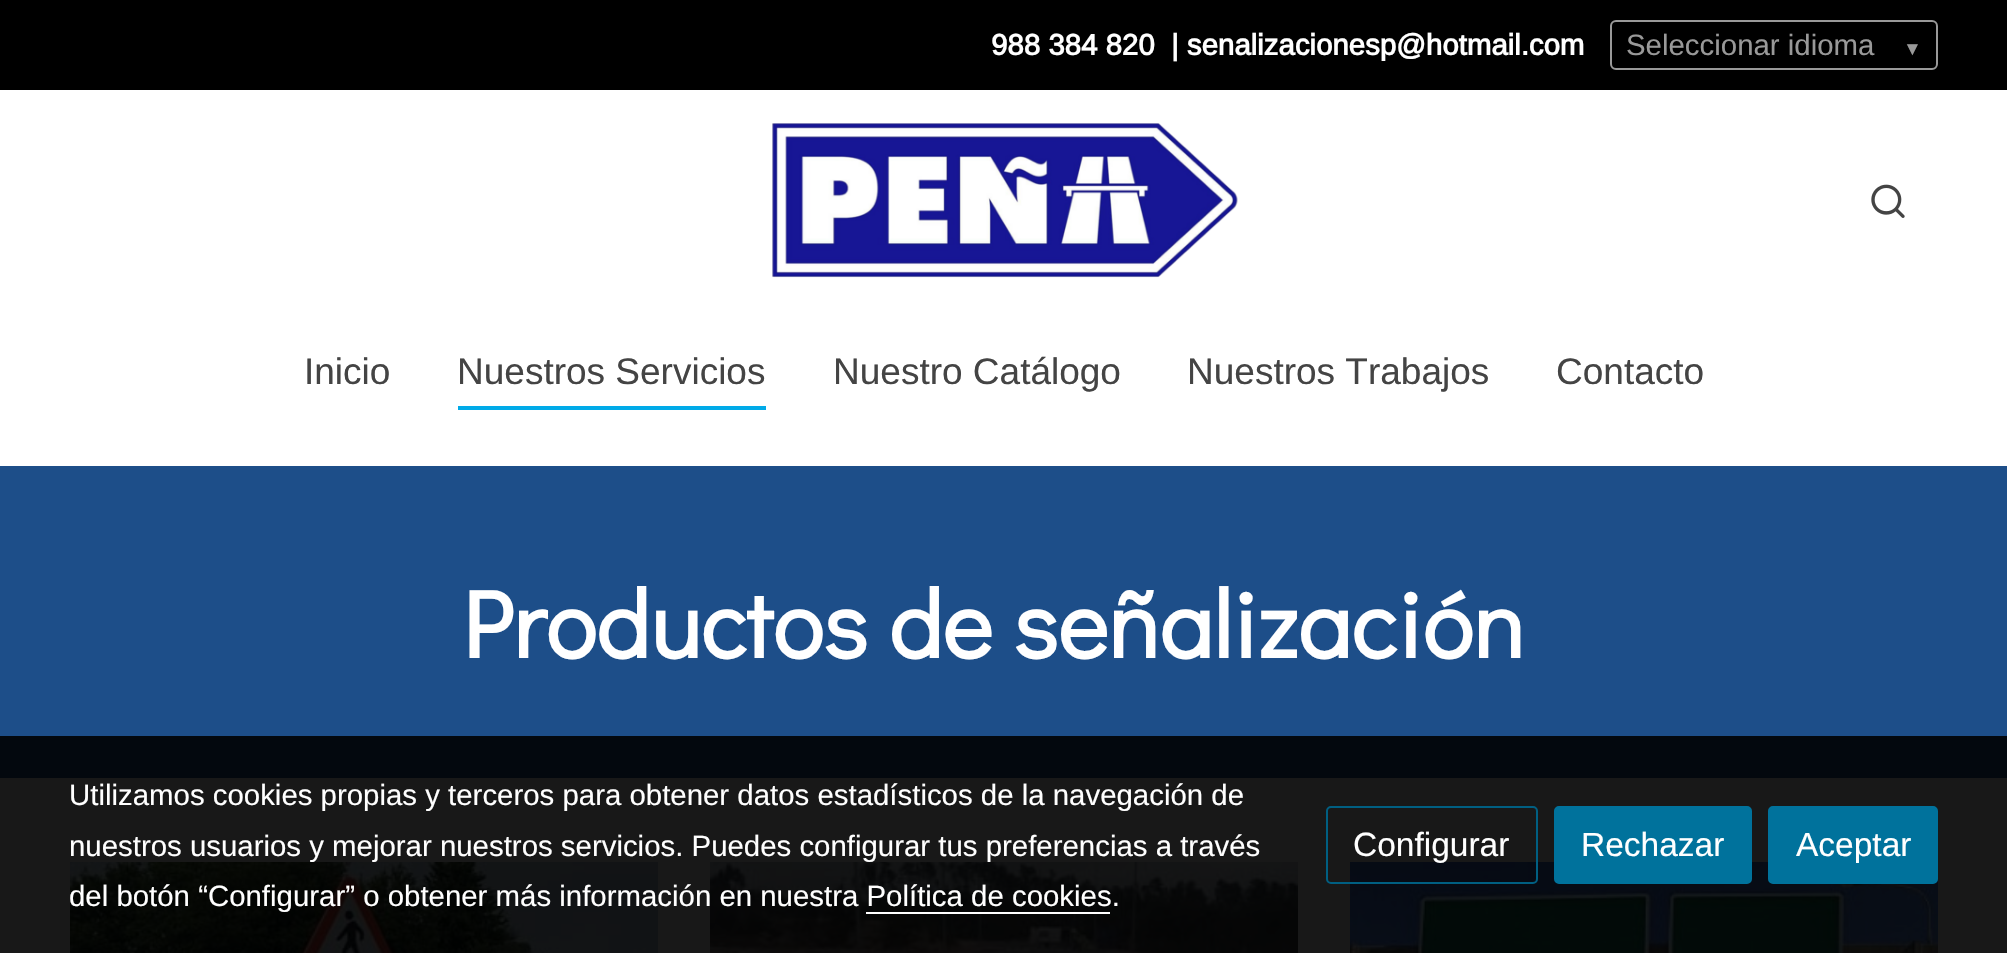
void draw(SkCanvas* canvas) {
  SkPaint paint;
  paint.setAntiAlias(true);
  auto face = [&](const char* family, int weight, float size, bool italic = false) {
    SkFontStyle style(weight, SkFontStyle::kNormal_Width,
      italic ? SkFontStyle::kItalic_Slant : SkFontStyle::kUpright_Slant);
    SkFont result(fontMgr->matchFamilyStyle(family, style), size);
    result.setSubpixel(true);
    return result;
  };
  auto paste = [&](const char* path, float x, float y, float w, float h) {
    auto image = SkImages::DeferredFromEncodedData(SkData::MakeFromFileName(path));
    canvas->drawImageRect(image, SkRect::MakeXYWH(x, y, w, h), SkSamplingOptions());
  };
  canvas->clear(0xffffffff);
  paint.setColor(0xff000000);
  canvas->drawRect(SkRect::MakeXYWH(0, 0, 2007, 90), paint);
  paint.setStroke(true);
  paint.setStrokeWidth(2);
  paint.setColor(0xff999999);
  canvas->drawRoundRect(SkRect::MakeXYWH(1611, 21, 326, 48), 5, 5, paint);
  paste("img/1.png", 772, 123, 466, 155);
  paste("img/2.png", 1871, 184, 34, 34);
  paint.setStroke(false);
  {
    const struct { float x, y, w, h; SkColor color; } items[] = {
      {458, 406, 308, 4, 0xff00aae8},
      {0, 466, 2007, 270, 0xff1d4e89},
      {0, 736, 2007, 42, 0xff03080e},
      {0, 778, 2007, 175, 0xff181818},
    };
    for (auto [x, y, w, h, color] : items) {
      paint.setColor(color);
      canvas->drawRect(SkRect::MakeXYWH(x, y, w, h), paint);
    }
  }
  paste("img/3.png", 70, 862, 588, 91);
  paste("img/4.png", 710, 862, 588, 91);
  paste("img/5.png", 1350, 862, 588, 91);
  paint.setColor(0xffffffff);
  canvas->drawRect(SkRect::MakeXYWH(866, 912, 244, 2), paint);
  paint.setStroke(true);
  paint.setColor(0xff005f82);
  canvas->drawRoundRect(SkRect::MakeXYWH(1327, 807, 210, 76), 4, 4, paint);
  paint.setStroke(false);
  paint.setColor(0xff00729c);
  canvas->drawRoundRect(SkRect::MakeXYWH(1555, 807, 196, 76), 4, 4, paint);
  paint.setStroke(true);
  canvas->drawRoundRect(SkRect::MakeXYWH(1555, 807, 196, 76), 4, 4, paint);
  paint.setStroke(false);
  canvas->drawRoundRect(SkRect::MakeXYWH(1769, 807, 168, 76), 4, 4, paint);
  paint.setStroke(true);
  canvas->drawRoundRect(SkRect::MakeXYWH(1769, 807, 168, 76), 4, 4, paint);
  auto f0 = face("Arimo", 700, 29.4f);
  paint.setStroke(false);
  paint.setColor(0xffffffff);
  canvas->drawString("988 384 820", 991, 55, f0, paint);
  canvas->drawString("| senalizacionesp@hotmail.com", 1171, 55, f0, paint);
  auto f1 = face("Arimo", 400, 29.4f);
  paint.setColor(0xff999999);
  canvas->drawString("Seleccionar idioma", 1626, 55, f1, paint);
  auto f2 = face("Liberation Sans", 400, 19);
  canvas->drawString("▼", 1903, 55, f2, paint);
  auto f3 = face("Arimo", 400, 37);
  paint.setColor(0xff444444);
  {
    const struct { const char* s; float x, y; } items[] = {
      {"Inicio", 304, 384},
      {"Nuestros Servicios", 457, 384},
      {"Nuestro Catálogo", 833, 384},
      {"Nuestros Trabajos", 1187, 384},
      {"Contacto", 1556, 384},
    };
    for (auto [s, x, y] : items) {
      canvas->drawString(s, x, y, f3, paint);
    }
  }
  auto f4 = face("Didact Gothic", 700, 95.4f);
  paint.setColor(0xffffffff);
  canvas->drawString("Productos de señalización", 462, 658, f4, paint);
  {
    const struct { const char* s; float x, y; } items[] = {
      {"Utilizamos cookies propias y terceros para obtener datos estadísticos de la navegación de", 69, 805},
      {"nuestros usuarios y mejorar nuestros servicios. Puedes configurar tus preferencias a través", 69, 856},
      {"del botón “Configurar” o obtener más información en nuestra Política de cookies.", 69, 906},
    };
    for (auto [s, x, y] : items) {
      canvas->drawString(s, x, y, f1, paint);
    }
  }
  auto f5 = face("Arimo", 400, 33.5f);
  {
    const struct { const char* s; float x, y; } items[] = {
      {"Configurar", 1353, 856},
      {"Rechazar", 1581, 856},
      {"Aceptar", 1796, 856},
    };
    for (auto [s, x, y] : items) {
      canvas->drawString(s, x, y, f5, paint);
    }
  }
}
